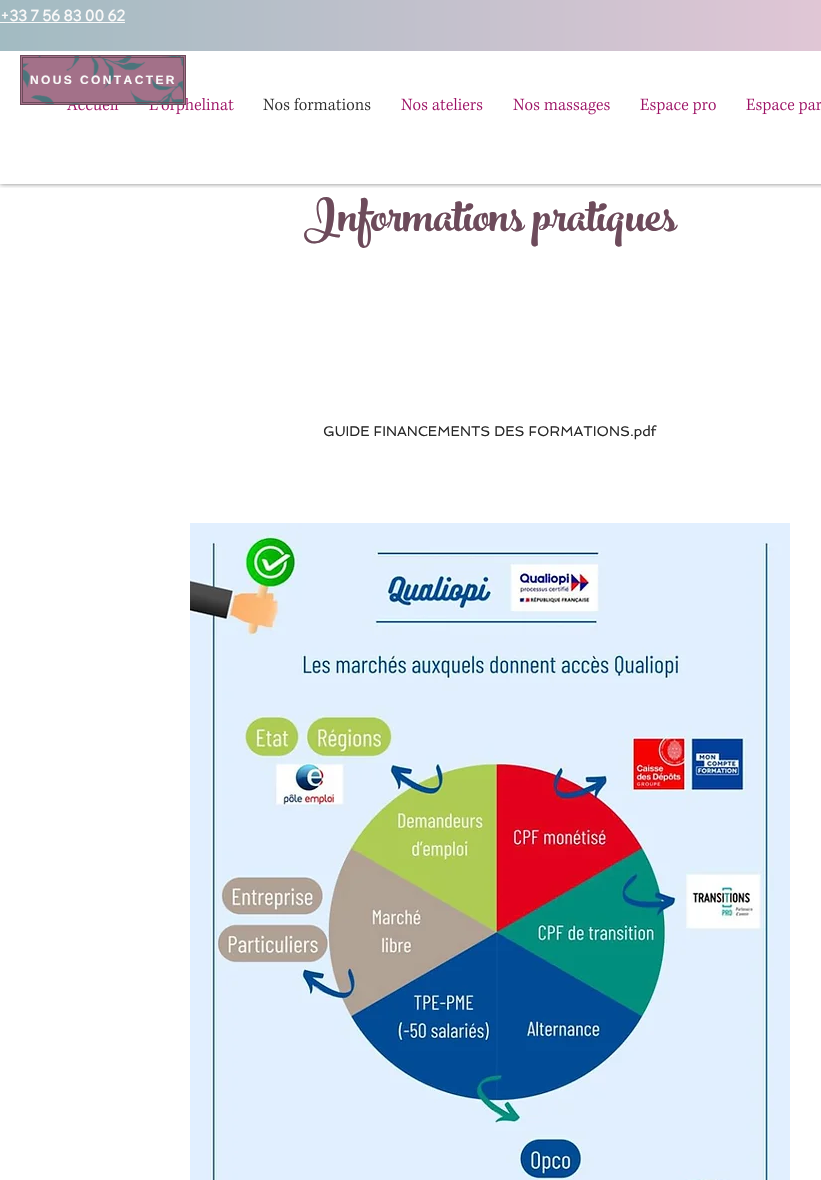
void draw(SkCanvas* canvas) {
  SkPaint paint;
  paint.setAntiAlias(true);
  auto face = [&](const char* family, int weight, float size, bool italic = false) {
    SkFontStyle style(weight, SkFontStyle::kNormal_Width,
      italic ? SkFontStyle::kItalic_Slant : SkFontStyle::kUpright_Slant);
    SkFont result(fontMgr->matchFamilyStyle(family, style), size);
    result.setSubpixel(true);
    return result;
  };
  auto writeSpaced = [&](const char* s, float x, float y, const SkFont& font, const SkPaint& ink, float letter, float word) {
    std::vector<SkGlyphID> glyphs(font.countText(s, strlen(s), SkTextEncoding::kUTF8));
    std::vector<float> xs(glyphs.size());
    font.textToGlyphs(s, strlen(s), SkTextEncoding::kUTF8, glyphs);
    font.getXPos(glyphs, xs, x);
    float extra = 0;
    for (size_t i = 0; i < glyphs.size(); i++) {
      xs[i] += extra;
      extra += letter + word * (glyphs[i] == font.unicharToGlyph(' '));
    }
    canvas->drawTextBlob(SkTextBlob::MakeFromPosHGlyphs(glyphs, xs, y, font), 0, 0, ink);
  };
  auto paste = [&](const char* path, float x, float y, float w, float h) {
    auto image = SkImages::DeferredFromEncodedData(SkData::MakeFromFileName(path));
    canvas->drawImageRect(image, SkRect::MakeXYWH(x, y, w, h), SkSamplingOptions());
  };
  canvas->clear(0xffffffff);
  canvas->save();
  canvas->clipRect(SkRect::MakeXYWH(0, 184, 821, 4));
  paint.setColor(0x80000000);
  paint.setMaskFilter(SkMaskFilter::MakeBlur(kNormal_SkBlurStyle, 2.5f));
  canvas->drawRect(SkRect::MakeXYWH(0, 0, 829, 184), paint);
  paint.setMaskFilter(nullptr);
  canvas->restore();
  {
    const SkColor colors[] = {0xffa2bbc2, 0xffecc8d9};
    const float stops[] = {0, 1};
    const SkPoint ends[] = {{0, 26}, {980, 25}};
    paint.setShader(SkGradientShader::MakeLinear(ends, colors, stops, 2, SkTileMode::kClamp));
    paint.setAlpha(255);
  }
  canvas->drawRect(SkRect::MakeXYWH(0, 0, 821, 51), paint);
  paint.setShader(nullptr);
  paint.setColor(0xfff9f9f9);
  canvas->drawRect(SkRect::MakeXYWH(0, 22, 125, 1), paint);
  paste("img/1.png", 66, 105, 53, 6);
  paste("img/2.png", 149, 98, 85, 17);
  paste("img/3.png", 263, 97, 108, 14);
  paste("img/4.png", 401, 98, 82, 13);
  paste("img/5.png", 513, 98, 97, 17);
  paste("img/6.png", 640, 98, 76, 17);
  paste("img/7.png", 746, 98, 75, 17);
  paint.setColor(0xffa37189);
  canvas->drawRect(SkRect::MakeXYWH(21, 56, 164, 48), paint);
  paste("img/8.png", 23, 56, 161, 48);
  paint.setStroke(true);
  paint.setStrokeWidth(1);
  paint.setColor(0xff6d4b5b);
  canvas->drawRect(SkRect::MakeXYWH(20.5f, 55.5f, 165, 49), paint);
  canvas->drawRect(SkRect::MakeXYWH(22.5f, 57.5f, 161, 45), paint);
  paste("img/9.png", 190, 523, 600, 657);
  auto f0 = face("Wix Madefor Text", 700, 15);
  paint.setStroke(false);
  paint.setColor(0xfff9f9f9);
  canvas->drawString("+33 7 56 83 00 62", 0, 21, f0, paint);
  auto f1 = face("Liberation Sans", 700, 12);
  writeSpaced("NOUS CONTACTER", 30, 84, f1, paint, 2.4f, 0);
  auto f2 = face("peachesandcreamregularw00", 400, 70);
  paint.setColor(0xff6d4b5b);
  canvas->drawString("Informations pratiques", 304, 231, f2, paint);
  auto f3 = face("Spinnaker", 400, 14);
  paint.setColor(0xff292929);
  canvas->drawString("GUIDE FINANCEMENTS DES FORMATIONS.pdf", 323, 436, f3, paint);
}
